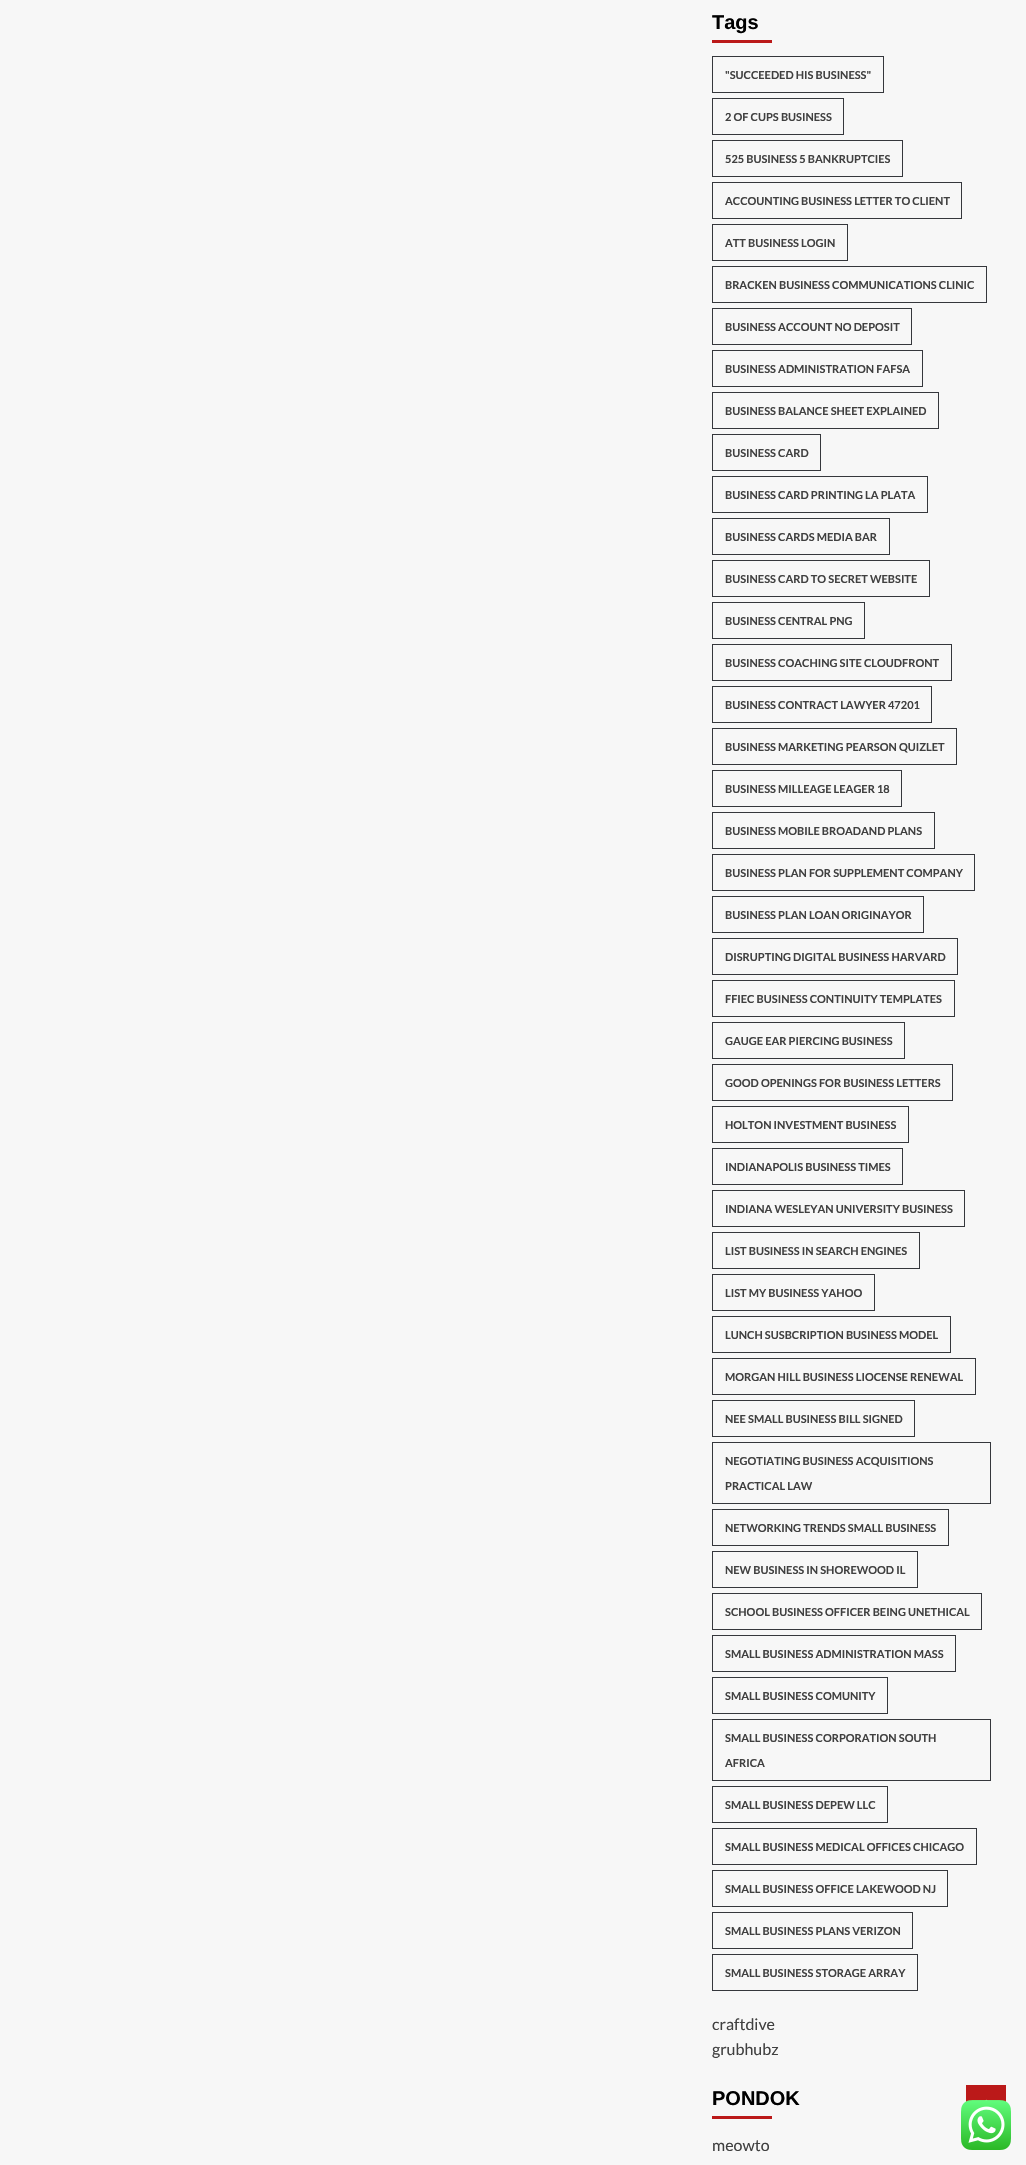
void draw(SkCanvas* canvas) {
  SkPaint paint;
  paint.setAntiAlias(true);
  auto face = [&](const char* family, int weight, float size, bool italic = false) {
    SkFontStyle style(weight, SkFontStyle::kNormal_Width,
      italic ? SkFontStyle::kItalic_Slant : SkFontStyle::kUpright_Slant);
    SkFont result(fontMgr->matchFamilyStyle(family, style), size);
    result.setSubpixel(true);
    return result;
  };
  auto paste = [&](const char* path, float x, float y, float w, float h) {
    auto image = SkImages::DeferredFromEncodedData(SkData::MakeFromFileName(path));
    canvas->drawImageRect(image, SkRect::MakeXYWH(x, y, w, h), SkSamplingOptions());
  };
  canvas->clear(0xfff7f7f7);
  paint.setColor(0xffbb1919);
  canvas->drawRect(SkRect::MakeXYWH(712, 40, 60, 3), paint);
  paint.setStroke(true);
  paint.setStrokeWidth(1);
  paint.setColor(0xff35373c);
  canvas->drawRect(SkRect::MakeXYWH(712.5f, 56.5f, 171, 36), paint);
  canvas->drawRect(SkRect::MakeXYWH(712.5f, 98.5f, 131, 36), paint);
  canvas->drawRect(SkRect::MakeXYWH(712.5f, 140.5f, 190, 36), paint);
  canvas->drawRect(SkRect::MakeXYWH(712.5f, 182.5f, 249, 36), paint);
  canvas->drawRect(SkRect::MakeXYWH(712.5f, 224.5f, 135, 36), paint);
  canvas->drawRect(SkRect::MakeXYWH(712.5f, 266.5f, 274, 36), paint);
  canvas->drawRect(SkRect::MakeXYWH(712.5f, 308.5f, 199, 36), paint);
  canvas->drawRect(SkRect::MakeXYWH(712.5f, 350.5f, 210, 36), paint);
  canvas->drawRect(SkRect::MakeXYWH(712.5f, 392.5f, 226, 36), paint);
  canvas->drawRect(SkRect::MakeXYWH(712.5f, 434.5f, 108, 36), paint);
  canvas->drawRect(SkRect::MakeXYWH(712.5f, 476.5f, 215, 36), paint);
  canvas->drawRect(SkRect::MakeXYWH(712.5f, 518.5f, 177, 36), paint);
  canvas->drawRect(SkRect::MakeXYWH(712.5f, 560.5f, 217, 36), paint);
  canvas->drawRect(SkRect::MakeXYWH(712.5f, 602.5f, 152, 36), paint);
  canvas->drawRect(SkRect::MakeXYWH(712.5f, 644.5f, 239, 36), paint);
  canvas->drawRect(SkRect::MakeXYWH(712.5f, 686.5f, 219, 36), paint);
  canvas->drawRect(SkRect::MakeXYWH(712.5f, 728.5f, 244, 36), paint);
  canvas->drawRect(SkRect::MakeXYWH(712.5f, 770.5f, 189, 36), paint);
  canvas->drawRect(SkRect::MakeXYWH(712.5f, 812.5f, 222, 36), paint);
  canvas->drawRect(SkRect::MakeXYWH(712.5f, 854.5f, 262, 36), paint);
  canvas->drawRect(SkRect::MakeXYWH(712.5f, 896.5f, 211, 36), paint);
  canvas->drawRect(SkRect::MakeXYWH(712.5f, 938.5f, 245, 36), paint);
  canvas->drawRect(SkRect::MakeXYWH(712.5f, 980.5f, 242, 36), paint);
  canvas->drawRect(SkRect::MakeXYWH(712.5f, 1022.5f, 192, 36), paint);
  canvas->drawRect(SkRect::MakeXYWH(712.5f, 1064.5f, 240, 36), paint);
  canvas->drawRect(SkRect::MakeXYWH(712.5f, 1106.5f, 196, 36), paint);
  canvas->drawRect(SkRect::MakeXYWH(712.5f, 1148.5f, 190, 36), paint);
  canvas->drawRect(SkRect::MakeXYWH(712.5f, 1190.5f, 252, 36), paint);
  canvas->drawRect(SkRect::MakeXYWH(712.5f, 1232.5f, 207, 36), paint);
  canvas->drawRect(SkRect::MakeXYWH(712.5f, 1274.5f, 162, 36), paint);
  canvas->drawRect(SkRect::MakeXYWH(712.5f, 1316.5f, 238, 36), paint);
  canvas->drawRect(SkRect::MakeXYWH(712.5f, 1358.5f, 263, 36), paint);
  canvas->drawRect(SkRect::MakeXYWH(712.5f, 1400.5f, 202, 36), paint);
  canvas->drawRect(SkRect::MakeXYWH(712.5f, 1442.5f, 278, 61), paint);
  canvas->drawRect(SkRect::MakeXYWH(712.5f, 1509.5f, 236, 36), paint);
  canvas->drawRect(SkRect::MakeXYWH(712.5f, 1551.5f, 205, 36), paint);
  canvas->drawRect(SkRect::MakeXYWH(712.5f, 1593.5f, 269, 36), paint);
  canvas->drawRect(SkRect::MakeXYWH(712.5f, 1635.5f, 243, 36), paint);
  canvas->drawRect(SkRect::MakeXYWH(712.5f, 1677.5f, 175, 36), paint);
  canvas->drawRect(SkRect::MakeXYWH(712.5f, 1719.5f, 278, 61), paint);
  canvas->drawRect(SkRect::MakeXYWH(712.5f, 1786.5f, 175, 36), paint);
  canvas->drawRect(SkRect::MakeXYWH(712.5f, 1828.5f, 264, 36), paint);
  canvas->drawRect(SkRect::MakeXYWH(712.5f, 1870.5f, 235, 36), paint);
  canvas->drawRect(SkRect::MakeXYWH(712.5f, 1912.5f, 200, 36), paint);
  canvas->drawRect(SkRect::MakeXYWH(712.5f, 1954.5f, 205, 36), paint);
  paint.setStroke(false);
  paint.setColor(0xffbb1919);
  canvas->drawRect(SkRect::MakeXYWH(712, 2116, 60, 3), paint);
  canvas->drawRect(SkRect::MakeXYWH(966, 2085, 40, 17), paint);
  paste("img/1.png", 985, 2099, 3, 2);
  paste("img/2.png", 961, 2100, 50, 50);
  auto f0 = face("Liberation Sans", 700, 20);
  paint.setColor(0xff000000);
  canvas->drawString("Tags", 712, 29, f0, paint);
  auto f1 = face("Lato", 700, 11);
  paint.setColor(0xff404040);
  {
    const struct { const char* s; float x, y; } items[] = {
      {"\"SUCCEEDED HIS BUSINESS\"", 725, 79},
      {"2 OF CUPS BUSINESS", 725, 121},
      {"525 BUSINESS 5 BANKRUPTCIES", 725, 163},
      {"ACCOUNTING BUSINESS LETTER TO CLIENT", 725, 205},
      {"ATT BUSINESS LOGIN", 725, 247},
      {"BRACKEN BUSINESS COMMUNICATIONS CLINIC", 725, 289},
      {"BUSINESS ACCOUNT NO DEPOSIT", 725, 331},
      {"BUSINESS ADMINISTRATION FAFSA", 725, 373},
      {"BUSINESS BALANCE SHEET EXPLAINED", 725, 415},
      {"BUSINESS CARD", 725, 457},
      {"BUSINESS CARD PRINTING LA PLATA", 725, 499},
      {"BUSINESS CARDS MEDIA BAR", 725, 541},
      {"BUSINESS CARD TO SECRET WEBSITE", 725, 583},
      {"BUSINESS CENTRAL PNG", 725, 625},
      {"BUSINESS COACHING SITE CLOUDFRONT", 725, 667},
      {"BUSINESS CONTRACT LAWYER 47201", 725, 709},
      {"BUSINESS MARKETING PEARSON QUIZLET", 725, 751},
      {"BUSINESS MILLEAGE LEAGER 18", 725, 793},
      {"BUSINESS MOBILE BROADAND PLANS", 725, 835},
      {"BUSINESS PLAN FOR SUPPLEMENT COMPANY", 725, 877},
      {"BUSINESS PLAN LOAN ORIGINAYOR", 725, 919},
      {"DISRUPTING DIGITAL BUSINESS HARVARD", 725, 961},
      {"FFIEC BUSINESS CONTINUITY TEMPLATES", 725, 1003},
      {"GAUGE EAR PIERCING BUSINESS", 725, 1045},
      {"GOOD OPENINGS FOR BUSINESS LETTERS", 725, 1087},
      {"HOLTON INVESTMENT BUSINESS", 725, 1129},
      {"INDIANAPOLIS BUSINESS TIMES", 725, 1171},
      {"INDIANA WESLEYAN UNIVERSITY BUSINESS", 725, 1213},
      {"LIST BUSINESS IN SEARCH ENGINES", 725, 1255},
      {"LIST MY BUSINESS YAHOO", 725, 1297},
      {"LUNCH SUSBCRIPTION BUSINESS MODEL", 725, 1339},
      {"MORGAN HILL BUSINESS LIOCENSE RENEWAL", 725, 1381},
      {"NEE SMALL BUSINESS BILL SIGNED", 725, 1423},
      {"NEGOTIATING BUSINESS ACQUISITIONS", 725, 1465},
      {"PRACTICAL LAW", 725, 1490},
      {"NETWORKING TRENDS SMALL BUSINESS", 725, 1532},
      {"NEW BUSINESS IN SHOREWOOD IL", 725, 1574},
      {"SCHOOL BUSINESS OFFICER BEING UNETHICAL", 725, 1616},
      {"SMALL BUSINESS ADMINISTRATION MASS", 725, 1658},
      {"SMALL BUSINESS COMUNITY", 725, 1700},
      {"SMALL BUSINESS CORPORATION SOUTH", 725, 1742},
      {"AFRICA", 725, 1767},
      {"SMALL BUSINESS DEPEW LLC", 725, 1809},
      {"SMALL BUSINESS MEDICAL OFFICES CHICAGO", 725, 1851},
      {"SMALL BUSINESS OFFICE LAKEWOOD NJ", 725, 1893},
      {"SMALL BUSINESS PLANS VERIZON", 725, 1935},
      {"SMALL BUSINESS STORAGE ARRAY", 725, 1977},
    };
    for (auto [s, x, y] : items) {
      canvas->drawString(s, x, y, f1, paint);
    }
  }
  auto f2 = face("Lato", 400, 16);
  canvas->drawString("craftdive", 712, 2030, f2, paint);
  canvas->drawString("grubhubz", 712, 2055, f2, paint);
  paint.setColor(0xff000000);
  canvas->drawString("PONDOK", 712, 2105, f0, paint);
  paint.setColor(0xff404040);
  canvas->drawString("meowto", 712, 2151, f2, paint);
}
